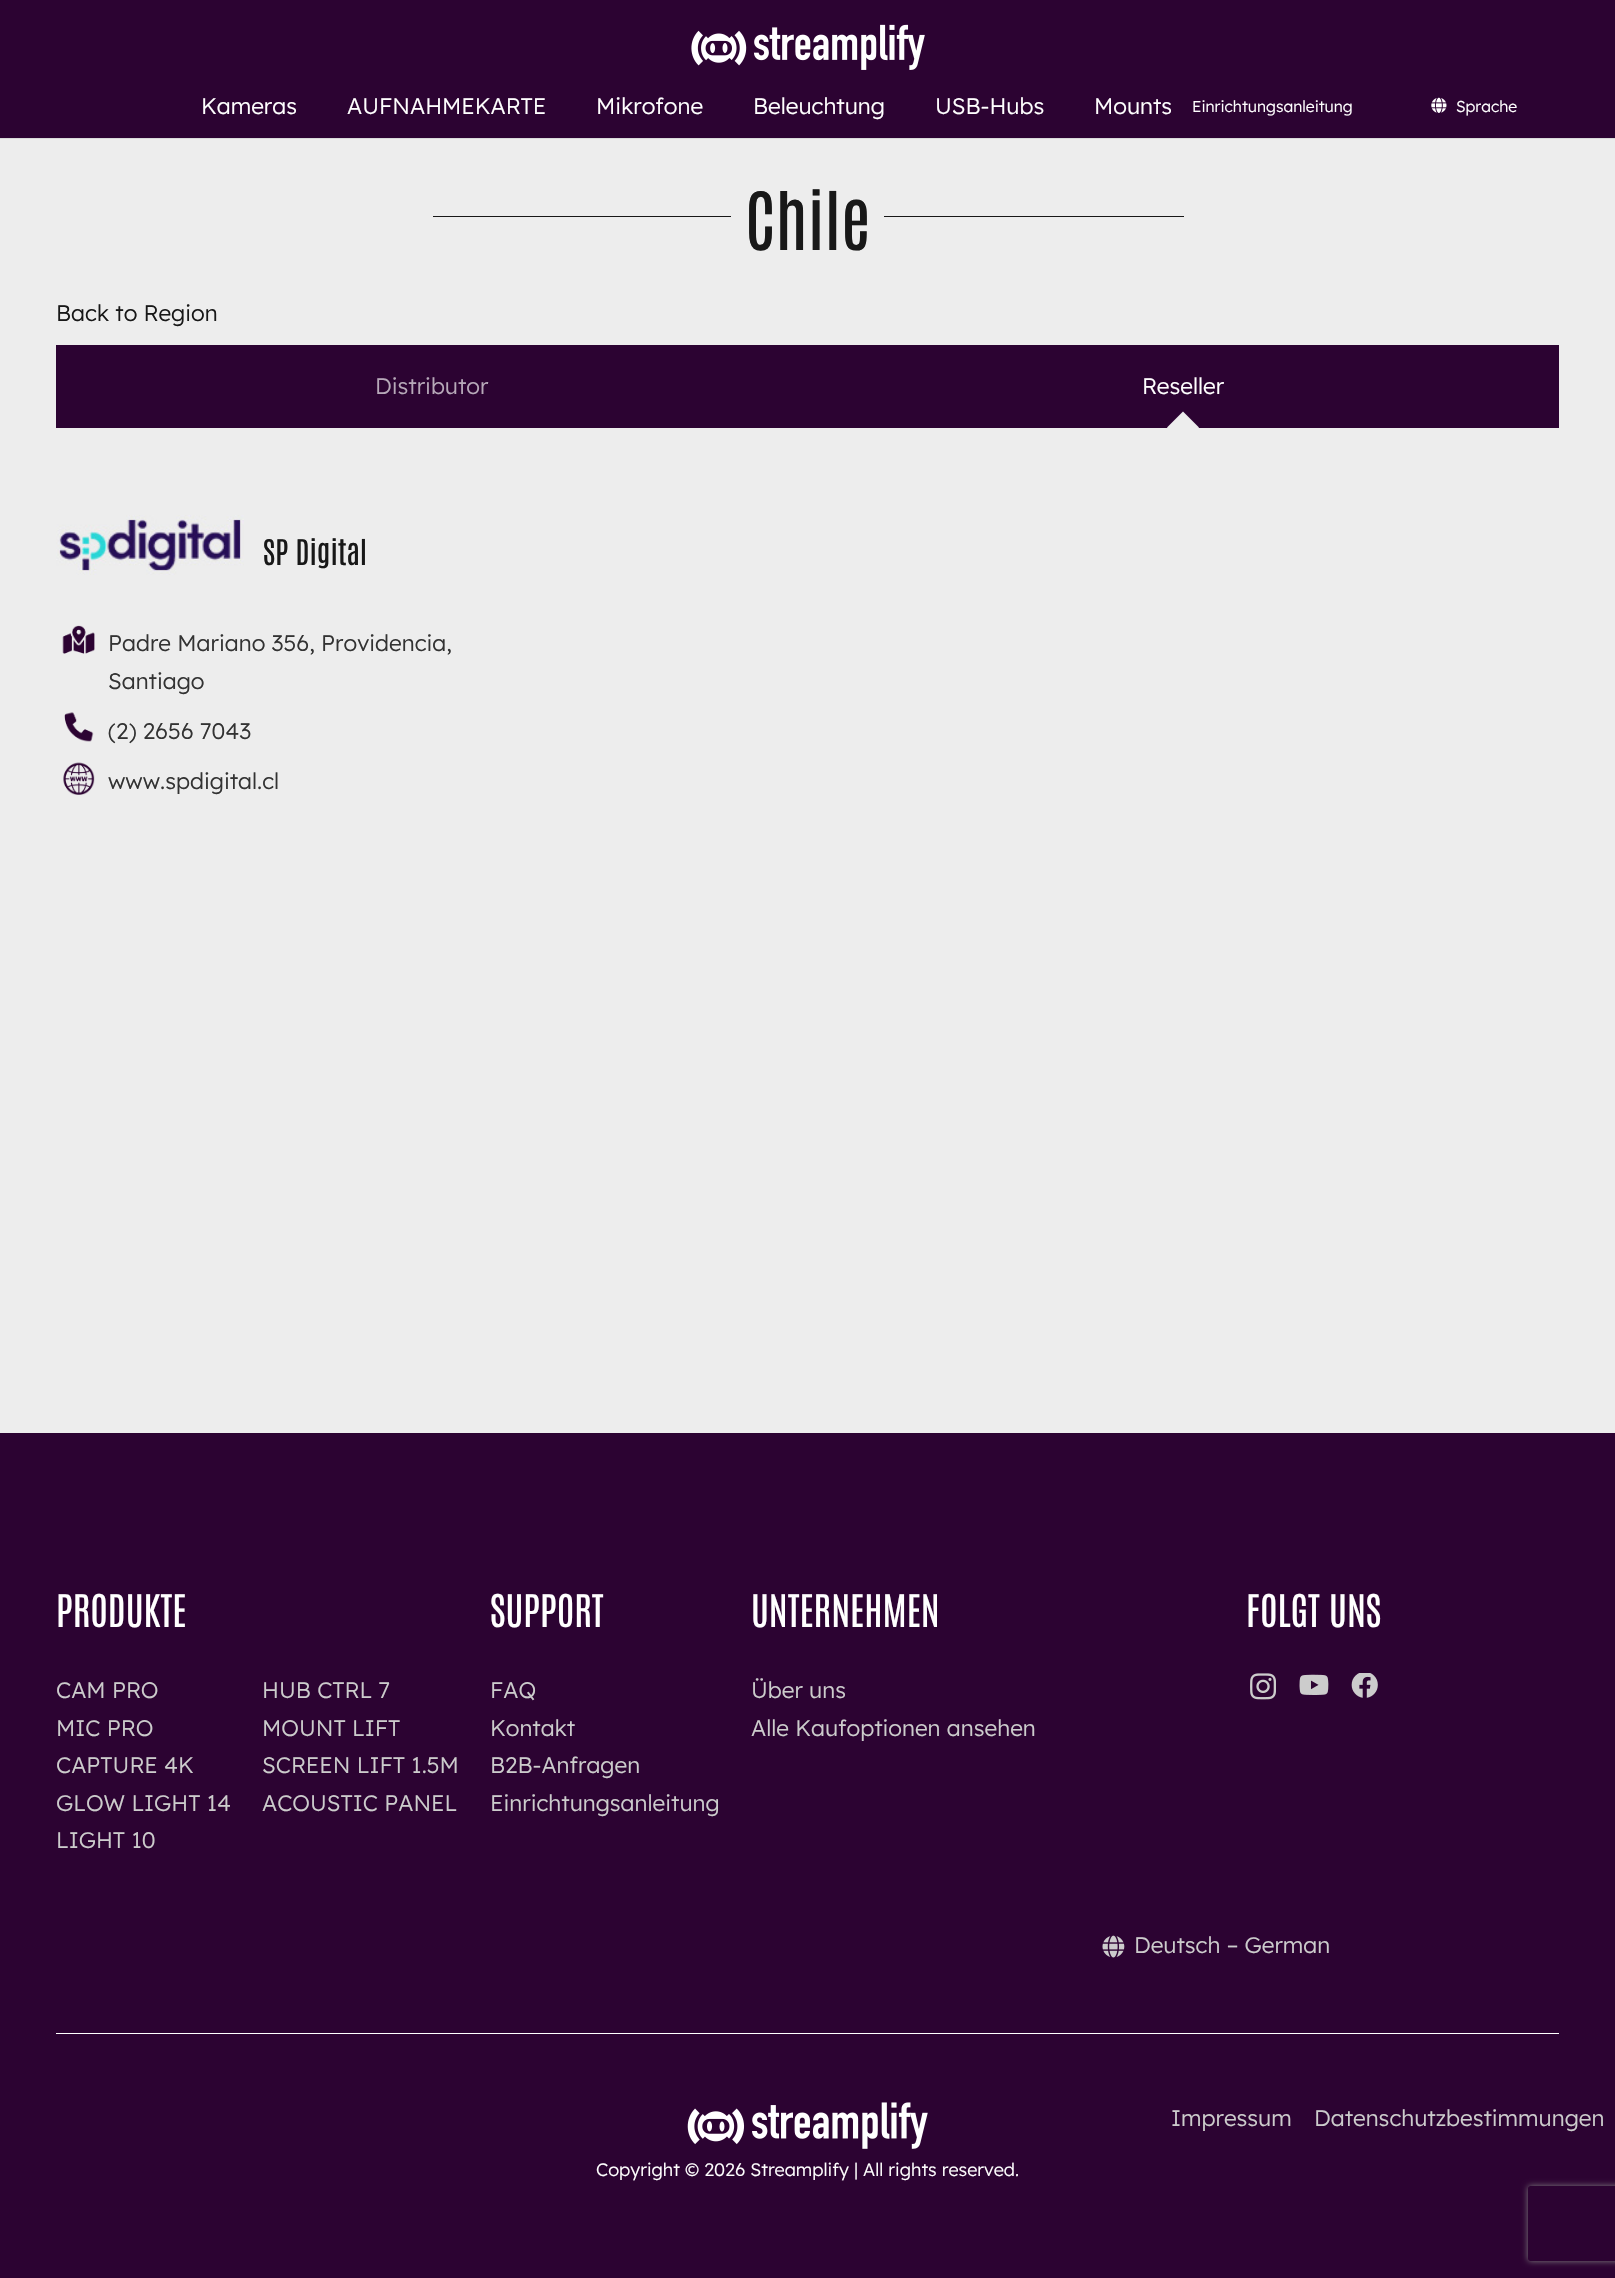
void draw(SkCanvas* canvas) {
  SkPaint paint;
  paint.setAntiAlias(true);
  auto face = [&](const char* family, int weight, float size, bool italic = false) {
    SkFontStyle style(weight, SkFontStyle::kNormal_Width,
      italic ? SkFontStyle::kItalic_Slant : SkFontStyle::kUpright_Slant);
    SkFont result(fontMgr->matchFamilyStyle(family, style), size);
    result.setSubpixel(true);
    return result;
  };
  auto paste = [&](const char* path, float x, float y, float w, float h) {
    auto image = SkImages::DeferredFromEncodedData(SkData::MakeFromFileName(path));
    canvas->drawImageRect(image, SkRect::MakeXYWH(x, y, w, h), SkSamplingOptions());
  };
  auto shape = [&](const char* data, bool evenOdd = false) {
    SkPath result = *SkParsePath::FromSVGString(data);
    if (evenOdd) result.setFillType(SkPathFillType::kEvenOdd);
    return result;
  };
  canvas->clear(0xffededed);
  paint.setColor(0xff2c0332);
  canvas->drawRect(SkRect::MakeXYWH(0, 0, 1615, 138), paint);
  paste("img/1.png", 691, 24, 234, 46);
  paint.setColor(0xffdadada);
  canvas->drawRect(SkRect::MakeXYWH(0, 138, 1615, 1), paint);
  paste("img/2.png", 1431, 97, 16, 16);
  {
    const struct { float x, y, w, h; SkColor color; } items[] = {
      {433, 216, 298, 1, 0xff181818},
      {884, 216, 300, 1, 0xff181818},
      {56, 345, 1503, 83, 0xff2c0332},
    };
    for (auto [x, y, w, h, color] : items) {
      paint.setColor(color);
      canvas->drawRect(SkRect::MakeXYWH(x, y, w, h), paint);
    }
  }
  canvas->save();
  canvas->clipRect(SkRect::MakeXYWH(808, 345, 751, 83));
  paint.setColor(0xffededed);
  canvas->drawPath(shape("M1183 411.5L1199 427.5L1183 443.5L1167 427.5Z"), paint);
  canvas->restore();
  paste("img/3.png", 56, 515, 188, 60);
  paste("img/4.png", 62, 625, 33, 29);
  paste("img/5.png", 64, 712, 30, 30);
  paste("img/6.png", 63, 762, 32, 33);
  paint.setColor(0xff2c0332);
  canvas->drawRect(SkRect::MakeXYWH(0, 1433, 1615, 845), paint);
  paste("img/7.png", 1250, 1673, 26, 27);
  paste("img/8.png", 1299, 1674, 30, 21);
  paste("img/9.png", 1351, 1673, 27, 25);
  paste("img/10.png", 1102, 1935, 23, 23);
  paint.setColor(0xffffffff);
  canvas->drawRect(SkRect::MakeXYWH(56, 2033, 1503, 1), paint);
  paste("img/11.png", 687, 2102, 241, 47);
  canvas->save();
  canvas->clipPath(shape("M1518 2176H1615V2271H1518ZM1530.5 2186H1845.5C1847 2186 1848 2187 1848 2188.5V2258.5C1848 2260 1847 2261 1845.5 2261H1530.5C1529 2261 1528 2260 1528 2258.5V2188.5C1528 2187 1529 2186 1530.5 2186Z", true), true);
  paint.setColor(0xff808080);
  paint.setMaskFilter(SkMaskFilter::MakeBlur(kNormal_SkBlurStyle, 3));
  canvas->drawRoundRect(SkRect::MakeXYWH(1528, 2186, 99, 75), 2.5f, 2.5f, paint);
  paint.setMaskFilter(nullptr);
  canvas->restore();
  auto f0 = face("Lexend", 300, 22.5f);
  paint.setColor(0xffffffff);
  {
    const struct { const char* s; float x, y; } items[] = {
      {"Kameras", 201, 114},
      {"AUFNAHMEKARTE", 347, 114},
      {"Mikrofone", 596, 114},
      {"Beleuchtung", 753, 114},
      {"USB-Hubs", 935, 114},
      {"Mounts", 1094, 114},
    };
    for (auto [s, x, y] : items) {
      canvas->drawString(s, x, y, f0, paint);
    }
  }
  auto f1 = face("Lexend", 300, 15.75f);
  canvas->drawString("Einrichtungsanleitung", 1192, 112, f1, paint);
  canvas->drawString("Sprache", 1456, 112, f1, paint);
  auto f2 = face("Antonio", 400, 68);
  paint.setColor(0xff181818);
  canvas->drawString("Chile", 745, 250, f2, paint);
  canvas->drawString("Back to Region", 56, 321, f0, paint);
  paint.setColor(0xffb7a9b9);
  canvas->drawString("Distributor", 375, 394, f0, paint);
  paint.setColor(0xffffffff);
  canvas->drawString("Reseller", 1142, 394, f0, paint);
  auto f3 = face("Antonio", 400, 30);
  paint.setColor(0xff181818);
  canvas->drawString("SP Digital", 263, 565, f3, paint);
  paint.setColor(0xff333333);
  {
    const struct { const char* s; float x, y; } items[] = {
      {"Padre Mariano 356, Providencia,", 108, 651},
      {"Santiago", 108, 689},
      {"(2) 2656 7043", 108, 739},
      {"www.spdigital.cl", 108, 789},
    };
    for (auto [s, x, y] : items) {
      canvas->drawString(s, x, y, f0, paint);
    }
  }
  auto f4 = face("Antonio", 400, 38.25f);
  paint.setColor(0xffffffff);
  canvas->drawString("PRODUKTE", 56, 1627, f4, paint);
  paint.setColor(0xffcccccc);
  {
    const struct { const char* s; float x, y; } items[] = {
      {"CAM PRO", 56, 1698},
      {"MIC PRO", 56, 1736},
      {"CAPTURE 4K", 56, 1773},
      {"GLOW LIGHT 14", 56, 1811},
      {"LIGHT 10", 56, 1848},
      {"HUB CTRL 7", 262, 1698},
      {"MOUNT LIFT", 262, 1736},
      {"SCREEN LIFT 1.5M", 262, 1773},
      {"ACOUSTIC PANEL", 262, 1811},
    };
    for (auto [s, x, y] : items) {
      canvas->drawString(s, x, y, f0, paint);
    }
  }
  paint.setColor(0xffffffff);
  canvas->drawString("SUPPORT", 490, 1627, f4, paint);
  paint.setColor(0xffcccccc);
  {
    const struct { const char* s; float x, y; } items[] = {
      {"FAQ", 490, 1698},
      {"Kontakt", 490, 1736},
      {"B2B-Anfragen", 490, 1773},
      {"Einrichtungsanleitung", 490, 1811},
    };
    for (auto [s, x, y] : items) {
      canvas->drawString(s, x, y, f0, paint);
    }
  }
  paint.setColor(0xffffffff);
  canvas->drawString("UNTERNEHMEN", 751, 1627, f4, paint);
  paint.setColor(0xffcccccc);
  canvas->drawString("Über uns", 751, 1698, f0, paint);
  canvas->drawString("Alle Kaufoptionen ansehen", 751, 1736, f0, paint);
  paint.setColor(0xffffffff);
  canvas->drawString("FOLGT UNS", 1246, 1627, f4, paint);
  paint.setColor(0xffcccccc);
  {
    const struct { const char* s; float x, y; } items[] = {
      {"Deutsch – German", 1134, 1953},
      {"Impressum", 1171, 2126},
      {"Datenschutzbestimmungen", 1314, 2126},
    };
    for (auto [s, x, y] : items) {
      canvas->drawString(s, x, y, f0, paint);
    }
  }
  auto f5 = face("Lexend", 300, 18);
  paint.setColor(0xffffffff);
  canvas->drawString("Copyright © 2026 Streamplify | All rights reserved.", 596, 2176, f5, paint);
}
